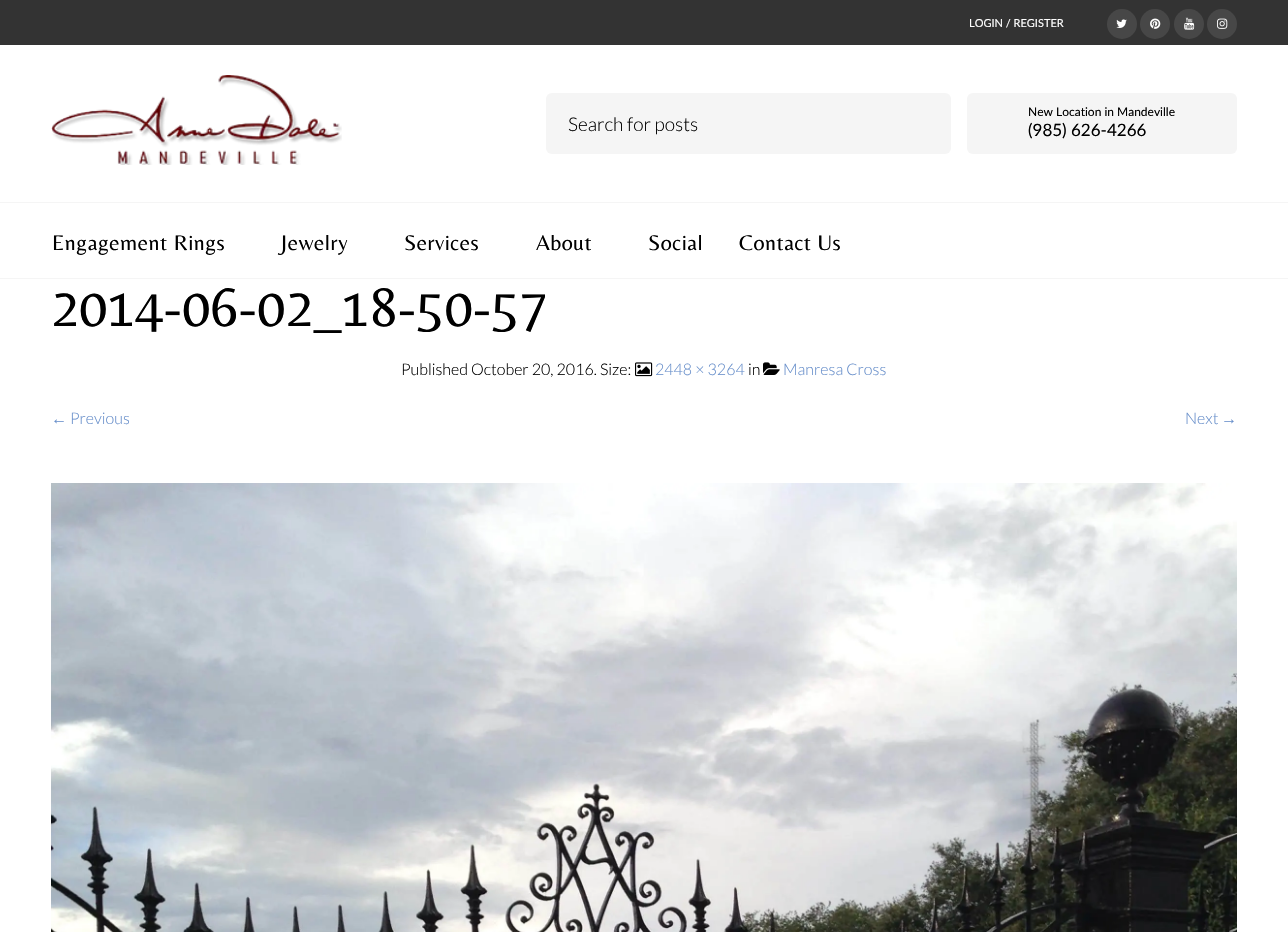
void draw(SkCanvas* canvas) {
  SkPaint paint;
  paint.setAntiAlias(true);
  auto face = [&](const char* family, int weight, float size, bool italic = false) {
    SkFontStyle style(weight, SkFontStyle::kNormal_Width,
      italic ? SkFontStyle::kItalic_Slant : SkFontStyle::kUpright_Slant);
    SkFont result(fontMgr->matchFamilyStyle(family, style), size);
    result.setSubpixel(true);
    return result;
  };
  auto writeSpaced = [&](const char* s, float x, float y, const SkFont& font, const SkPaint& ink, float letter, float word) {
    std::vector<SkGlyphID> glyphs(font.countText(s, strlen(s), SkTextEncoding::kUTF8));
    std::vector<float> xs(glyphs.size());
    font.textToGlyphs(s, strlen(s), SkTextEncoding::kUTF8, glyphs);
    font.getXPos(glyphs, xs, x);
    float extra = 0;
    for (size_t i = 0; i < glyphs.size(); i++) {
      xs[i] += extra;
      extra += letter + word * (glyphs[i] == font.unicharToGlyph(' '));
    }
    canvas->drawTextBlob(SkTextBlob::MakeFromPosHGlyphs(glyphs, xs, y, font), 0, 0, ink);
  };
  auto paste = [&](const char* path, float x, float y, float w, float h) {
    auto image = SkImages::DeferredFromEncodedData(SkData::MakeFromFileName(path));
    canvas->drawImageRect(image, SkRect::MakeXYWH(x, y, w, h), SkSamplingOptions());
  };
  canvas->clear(0xffffffff);
  paint.setColor(0xff333333);
  canvas->drawRect(SkRect::MakeXYWH(0, 0, 1288, 45), paint);
  paint.setColor(0xff474747);
  canvas->drawCircle(1122, 24, 15, paint);
  paste("img/1.png", 1116, 19, 11, 9);
  canvas->drawCircle(1155, 24, 15, paint);
  paste("img/2.png", 1150, 18, 11, 11);
  canvas->drawCircle(1189, 24, 15, paint);
  paste("img/3.png", 1184, 17, 11, 13);
  canvas->drawCircle(1222, 24, 15, paint);
  paste("img/4.png", 1217, 18, 11, 11);
  paste("img/5.png", 51, 75, 291, 90);
  paint.setColor(0xfff5f5f5);
  canvas->drawRoundRect(SkRect::MakeXYWH(546, 93, 405, 61), 6, 6, paint);
  canvas->drawRoundRect(SkRect::MakeXYWH(967, 93, 270, 61), 6, 6, paint);
  canvas->drawRect(SkRect::MakeXYWH(0, 202, 1288, 1), paint);
  canvas->drawRect(SkRect::MakeXYWH(0, 278, 1288, 1), paint);
  paste("img/6.png", 635, 362, 18, 15);
  paste("img/7.png", 763, 362, 17, 13);
  paste("img/8.png", 51, 483, 1186, 449);
  auto f0 = face("Lato", 400, 11);
  paint.setColor(0xffffffff);
  canvas->drawString("LOGIN / REGISTER", 969, 27, f0, paint);
  auto f1 = face("Lato", 300, 19);
  paint.setColor(0xff000000);
  canvas->drawString("Search for posts", 568, 131, f1, paint);
  auto f2 = face("Lato", 400, 12);
  canvas->drawString("New Location in Mandeville", 1028, 116, f2, paint);
  auto f3 = face("Lato", 400, 17);
  canvas->drawString("(985) 626-4266", 1028, 136, f3, paint);
  auto f4 = face("Belleza", 400, 22);
  {
    const struct { const char* s; float x, y; } items[] = {
      {"Engagement Rings", 52, 250},
      {"Jewelry", 281, 250},
      {"Services", 404, 250},
      {"About", 536, 250},
      {"Social", 648, 250},
      {"Contact Us", 739, 250},
    };
    for (auto [s, x, y] : items) {
      writeSpaced(s, x, y, f4, paint, 0.5f, 0);
    }
  }
  auto f5 = face("Belleza", 400, 56.25f);
  canvas->drawString("2014-06-02_18-50-57", 51, 326, f5, paint);
  auto f6 = face("Lato", 300, 16);
  canvas->drawString("Published October 20, 2016. Size:", 401, 375, f6, paint);
  paint.setColor(0xff6990cb);
  canvas->drawString("2448 × 3264", 655, 375, f6, paint);
  paint.setColor(0xff000000);
  canvas->drawString("in", 748, 375, f6, paint);
  paint.setColor(0xff6990cb);
  canvas->drawString("Manresa Cross", 783, 375, f6, paint);
  auto f7 = face("Liberation Serif", 400, 16);
  canvas->drawString("←", 51, 424, f7, paint);
  canvas->drawString("Previous", 70, 424, f6, paint);
  canvas->drawString("Next", 1185, 424, f6, paint);
  canvas->drawString("→", 1221, 424, f7, paint);
}
